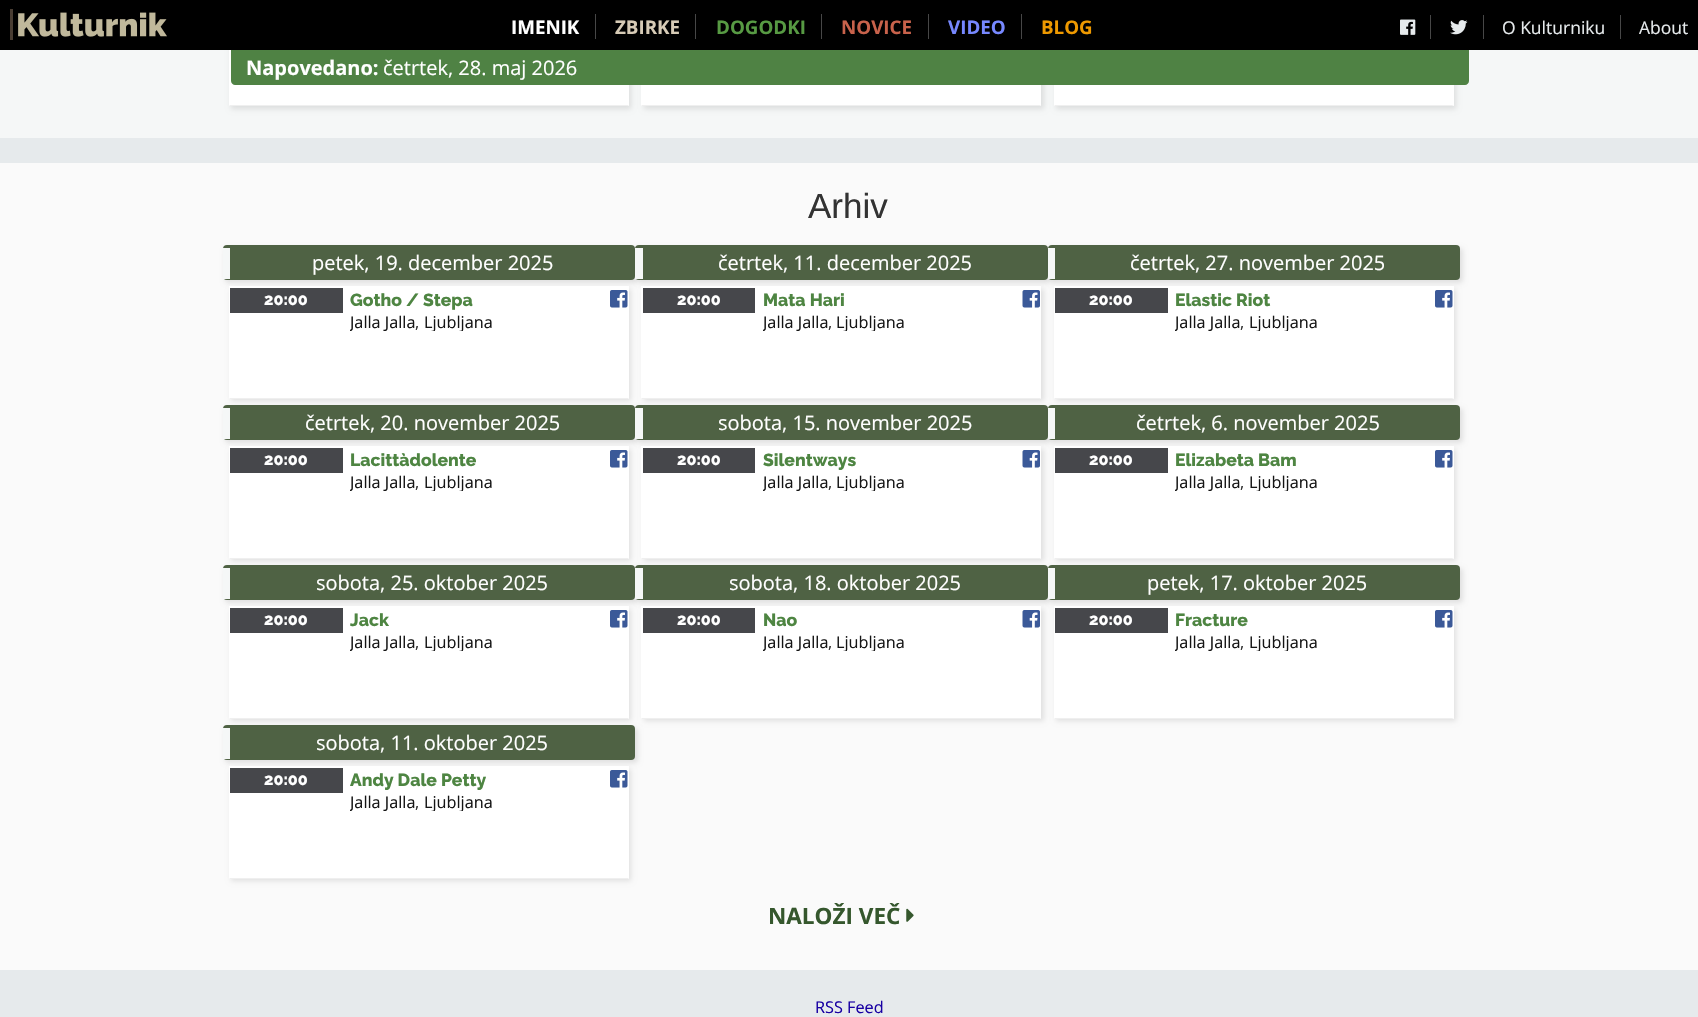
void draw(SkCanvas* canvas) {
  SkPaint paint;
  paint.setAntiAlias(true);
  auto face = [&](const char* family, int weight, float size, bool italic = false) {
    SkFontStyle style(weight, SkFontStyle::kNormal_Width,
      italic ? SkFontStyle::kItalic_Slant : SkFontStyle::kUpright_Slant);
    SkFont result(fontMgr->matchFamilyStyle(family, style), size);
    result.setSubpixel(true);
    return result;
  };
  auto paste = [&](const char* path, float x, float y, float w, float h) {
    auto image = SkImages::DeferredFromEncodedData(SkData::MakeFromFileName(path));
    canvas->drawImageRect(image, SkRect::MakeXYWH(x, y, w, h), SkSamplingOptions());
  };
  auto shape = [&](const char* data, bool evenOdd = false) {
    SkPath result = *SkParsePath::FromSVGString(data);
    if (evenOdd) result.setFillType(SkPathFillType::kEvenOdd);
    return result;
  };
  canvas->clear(0xffe6eaec);
  paint.setColor(0xfff5f7f7);
  canvas->drawRect(SkRect::MakeXYWH(0, 50, 1698, 88), paint);
  paint.setColor(0x1a000000);
  paint.setMaskFilter(SkMaskFilter::MakeBlur(kNormal_SkBlurStyle, 2.5f));
  canvas->drawRect(SkRect::MakeXYWH(231, -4, 400, 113), paint);
  paint.setMaskFilter(nullptr);
  paint.setMaskFilter(SkMaskFilter::MakeBlur(kNormal_SkBlurStyle, 2.5f));
  canvas->drawRect(SkRect::MakeXYWH(644, -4, 400, 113), paint);
  paint.setMaskFilter(nullptr);
  paint.setMaskFilter(SkMaskFilter::MakeBlur(kNormal_SkBlurStyle, 2.5f));
  canvas->drawRect(SkRect::MakeXYWH(1056, -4, 400, 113), paint);
  paint.setMaskFilter(nullptr);
  paint.setColor(0xff000000);
  canvas->drawRect(SkRect::MakeXYWH(0, 0, 1698, 50), paint);
  paste("img/1.png", 10, 9, 157, 31);
  {
    const struct { float x, y, w, h; SkColor color; } items[] = {
      {595, 14, 1, 25, 0xff474747},
      {695, 14, 1, 25, 0xff474747},
      {821, 14, 1, 25, 0xff474747},
      {928, 14, 1, 25, 0xff474747},
      {1021, 14, 1, 25, 0xff474747},
      {1430, 15, 1, 24, 0xff474747},
    };
    for (auto [x, y, w, h, color] : items) {
      paint.setColor(color);
      canvas->drawRect(SkRect::MakeXYWH(x, y, w, h), paint);
    }
  }
  paste("img/2.png", 1400, 19, 16, 16);
  canvas->drawRect(SkRect::MakeXYWH(1483, 15, 1, 24), paint);
  paste("img/3.png", 1450, 20, 18, 15);
  canvas->drawRect(SkRect::MakeXYWH(1620, 15, 1, 24), paint);
  paint.setColor(0xffffffff);
  canvas->drawRect(SkRect::MakeXYWH(229, 50, 400, 56), paint);
  paint.setColor(0xff4f8244);
  canvas->drawPath(shape("M231 50H1469V81C1469 83 1467 85 1465 85H235C233 85 231 83 231 81Z"), paint);
  paint.setColor(0xffefefef);
  canvas->drawPath(shape("M629 106H229L230 105H628Z"), paint);
  paint.setColor(0xffffffff);
  canvas->drawRect(SkRect::MakeXYWH(641, 85, 400, 21), paint);
  paint.setColor(0xffefefef);
  canvas->drawPath(shape("M1041 106H641L642 105H1040Z"), paint);
  paint.setColor(0xffffffff);
  canvas->drawRect(SkRect::MakeXYWH(1054, 85, 400, 21), paint);
  paint.setColor(0xffefefef);
  canvas->drawPath(shape("M1454 106H1054L1055 105H1452Z"), paint);
  paint.setColor(0xfffafafa);
  canvas->drawRect(SkRect::MakeXYWH(0, 163, 1698, 807), paint);
  paint.setColor(0x1a000000);
  paint.setMaskFilter(SkMaskFilter::MakeBlur(kNormal_SkBlurStyle, 2.5f));
  canvas->drawRoundRect(SkRect::MakeXYWH(225, 248, 413, 35), 4, 4, paint);
  paint.setMaskFilter(nullptr);
  paint.setColor(0xff4f6244);
  canvas->drawRoundRect(SkRect::MakeXYWH(223, 245, 412, 35), 4, 4, paint);
  paint.setColor(0xfff5f7f7);
  canvas->drawRect(SkRect::MakeXYWH(223, 248, 7, 31), paint);
  paint.setColor(0x1a000000);
  paint.setMaskFilter(SkMaskFilter::MakeBlur(kNormal_SkBlurStyle, 2.5f));
  canvas->drawRoundRect(SkRect::MakeXYWH(225, 408, 413, 35), 4, 4, paint);
  paint.setMaskFilter(nullptr);
  paint.setColor(0xff4f6244);
  canvas->drawRoundRect(SkRect::MakeXYWH(223, 405, 412, 35), 4, 4, paint);
  paint.setColor(0xfff5f7f7);
  canvas->drawRect(SkRect::MakeXYWH(223, 408, 7, 31), paint);
  paint.setColor(0x1a000000);
  paint.setMaskFilter(SkMaskFilter::MakeBlur(kNormal_SkBlurStyle, 2.5f));
  canvas->drawRoundRect(SkRect::MakeXYWH(638, 408, 412, 35), 4, 4, paint);
  paint.setMaskFilter(nullptr);
  paint.setColor(0xff4f6244);
  canvas->drawRoundRect(SkRect::MakeXYWH(635, 405, 413, 35), 4, 4, paint);
  paint.setColor(0xfff5f7f7);
  canvas->drawRect(SkRect::MakeXYWH(635, 408, 8, 31), paint);
  paint.setColor(0x1a000000);
  paint.setMaskFilter(SkMaskFilter::MakeBlur(kNormal_SkBlurStyle, 2.5f));
  canvas->drawRect(SkRect::MakeXYWH(231, 289, 400, 112), paint);
  paint.setMaskFilter(nullptr);
  paint.setColor(0xffffffff);
  canvas->drawRect(SkRect::MakeXYWH(229, 286, 400, 113), paint);
  paint.setColor(0xffefefef);
  canvas->drawPath(shape("M629 399H229L230 398H628Z"), paint);
  paint.setColor(0xff46474b);
  canvas->drawRect(SkRect::MakeXYWH(230, 288, 113, 25), paint);
  paste("img/4.png", 610, 290, 18, 18);
  paint.setColor(0x1a000000);
  paint.setMaskFilter(SkMaskFilter::MakeBlur(kNormal_SkBlurStyle, 2.5f));
  canvas->drawRoundRect(SkRect::MakeXYWH(638, 248, 412, 35), 4, 4, paint);
  paint.setMaskFilter(nullptr);
  paint.setColor(0xff4f6244);
  canvas->drawRoundRect(SkRect::MakeXYWH(635, 245, 413, 35), 4, 4, paint);
  paint.setColor(0xfff5f7f7);
  canvas->drawRect(SkRect::MakeXYWH(635, 248, 8, 31), paint);
  paint.setColor(0x1a000000);
  paint.setMaskFilter(SkMaskFilter::MakeBlur(kNormal_SkBlurStyle, 2.5f));
  canvas->drawRoundRect(SkRect::MakeXYWH(1050, 408, 413, 35), 4, 4, paint);
  paint.setMaskFilter(nullptr);
  paint.setColor(0xff4f6244);
  canvas->drawRoundRect(SkRect::MakeXYWH(1048, 405, 412, 35), 4, 4, paint);
  paint.setColor(0xfff5f7f7);
  canvas->drawRect(SkRect::MakeXYWH(1048, 408, 7, 31), paint);
  paint.setColor(0x1a000000);
  paint.setMaskFilter(SkMaskFilter::MakeBlur(kNormal_SkBlurStyle, 2.5f));
  canvas->drawRect(SkRect::MakeXYWH(644, 289, 400, 112), paint);
  paint.setMaskFilter(nullptr);
  paint.setColor(0xffffffff);
  canvas->drawRect(SkRect::MakeXYWH(641, 286, 400, 113), paint);
  paint.setColor(0xffefefef);
  canvas->drawPath(shape("M1041 399H641L642 398H1040Z"), paint);
  paint.setColor(0xff46474b);
  canvas->drawRect(SkRect::MakeXYWH(643, 288, 112, 25), paint);
  paste("img/5.png", 1022, 290, 18, 18);
  paint.setColor(0x1a000000);
  paint.setMaskFilter(SkMaskFilter::MakeBlur(kNormal_SkBlurStyle, 2.5f));
  canvas->drawRoundRect(SkRect::MakeXYWH(1050, 248, 413, 35), 4, 4, paint);
  paint.setMaskFilter(nullptr);
  paint.setColor(0xff4f6244);
  canvas->drawRoundRect(SkRect::MakeXYWH(1048, 245, 412, 35), 4, 4, paint);
  paint.setColor(0xfff5f7f7);
  canvas->drawRect(SkRect::MakeXYWH(1048, 248, 7, 31), paint);
  paint.setColor(0x1a000000);
  paint.setMaskFilter(SkMaskFilter::MakeBlur(kNormal_SkBlurStyle, 2.5f));
  canvas->drawRect(SkRect::MakeXYWH(1056, 289, 400, 112), paint);
  paint.setMaskFilter(nullptr);
  paint.setColor(0xffffffff);
  canvas->drawRect(SkRect::MakeXYWH(1054, 286, 400, 113), paint);
  paint.setColor(0xffefefef);
  canvas->drawPath(shape("M1454 399H1054L1055 398H1452Z"), paint);
  paint.setColor(0xff46474b);
  canvas->drawRect(SkRect::MakeXYWH(1055, 288, 113, 25), paint);
  paste("img/4.png", 1435, 290, 18, 18);
  paint.setColor(0x1a000000);
  paint.setMaskFilter(SkMaskFilter::MakeBlur(kNormal_SkBlurStyle, 2.5f));
  canvas->drawRoundRect(SkRect::MakeXYWH(225, 568, 413, 35), 4, 4, paint);
  paint.setMaskFilter(nullptr);
  paint.setColor(0xff4f6244);
  canvas->drawRoundRect(SkRect::MakeXYWH(223, 565, 412, 35), 4, 4, paint);
  paint.setColor(0xfff5f7f7);
  canvas->drawRect(SkRect::MakeXYWH(223, 568, 7, 31), paint);
  paint.setColor(0x1a000000);
  paint.setMaskFilter(SkMaskFilter::MakeBlur(kNormal_SkBlurStyle, 2.5f));
  canvas->drawRoundRect(SkRect::MakeXYWH(638, 568, 412, 35), 4, 4, paint);
  paint.setMaskFilter(nullptr);
  paint.setColor(0xff4f6244);
  canvas->drawRoundRect(SkRect::MakeXYWH(635, 565, 413, 35), 4, 4, paint);
  paint.setColor(0xfff5f7f7);
  canvas->drawRect(SkRect::MakeXYWH(635, 568, 8, 31), paint);
  paint.setColor(0x1a000000);
  paint.setMaskFilter(SkMaskFilter::MakeBlur(kNormal_SkBlurStyle, 2.5f));
  canvas->drawRect(SkRect::MakeXYWH(231, 449, 400, 112), paint);
  paint.setMaskFilter(nullptr);
  paint.setColor(0xffffffff);
  canvas->drawRect(SkRect::MakeXYWH(229, 446, 400, 113), paint);
  paint.setColor(0xffefefef);
  canvas->drawPath(shape("M629 559H229L230 558H628Z"), paint);
  paint.setColor(0xff46474b);
  canvas->drawRect(SkRect::MakeXYWH(230, 448, 113, 25), paint);
  paste("img/4.png", 610, 450, 18, 18);
  paint.setColor(0x1a000000);
  paint.setMaskFilter(SkMaskFilter::MakeBlur(kNormal_SkBlurStyle, 2.5f));
  canvas->drawRoundRect(SkRect::MakeXYWH(1050, 568, 413, 35), 4, 4, paint);
  paint.setMaskFilter(nullptr);
  paint.setColor(0xff4f6244);
  canvas->drawRoundRect(SkRect::MakeXYWH(1048, 565, 412, 35), 4, 4, paint);
  paint.setColor(0xfff5f7f7);
  canvas->drawRect(SkRect::MakeXYWH(1048, 568, 7, 31), paint);
  paint.setColor(0x1a000000);
  paint.setMaskFilter(SkMaskFilter::MakeBlur(kNormal_SkBlurStyle, 2.5f));
  canvas->drawRect(SkRect::MakeXYWH(644, 449, 400, 112), paint);
  paint.setMaskFilter(nullptr);
  paint.setColor(0xffffffff);
  canvas->drawRect(SkRect::MakeXYWH(641, 446, 400, 113), paint);
  paint.setColor(0xffefefef);
  canvas->drawPath(shape("M1041 559H641L642 558H1040Z"), paint);
  paint.setColor(0xff46474b);
  canvas->drawRect(SkRect::MakeXYWH(643, 448, 112, 25), paint);
  paste("img/5.png", 1022, 450, 18, 18);
  paint.setColor(0x1a000000);
  paint.setMaskFilter(SkMaskFilter::MakeBlur(kNormal_SkBlurStyle, 2.5f));
  canvas->drawRect(SkRect::MakeXYWH(1056, 449, 400, 112), paint);
  paint.setMaskFilter(nullptr);
  paint.setColor(0xffffffff);
  canvas->drawRect(SkRect::MakeXYWH(1054, 446, 400, 113), paint);
  paint.setColor(0xffefefef);
  canvas->drawPath(shape("M1454 559H1054L1055 558H1452Z"), paint);
  paint.setColor(0xff46474b);
  canvas->drawRect(SkRect::MakeXYWH(1055, 448, 113, 25), paint);
  paste("img/4.png", 1435, 450, 18, 18);
  paint.setColor(0x1a000000);
  paint.setMaskFilter(SkMaskFilter::MakeBlur(kNormal_SkBlurStyle, 2.5f));
  canvas->drawRoundRect(SkRect::MakeXYWH(225, 728, 413, 35), 4, 4, paint);
  paint.setMaskFilter(nullptr);
  paint.setColor(0xff4f6244);
  canvas->drawRoundRect(SkRect::MakeXYWH(223, 725, 412, 35), 4, 4, paint);
  paint.setColor(0xfff5f7f7);
  canvas->drawRect(SkRect::MakeXYWH(223, 728, 7, 31), paint);
  paint.setColor(0x1a000000);
  paint.setMaskFilter(SkMaskFilter::MakeBlur(kNormal_SkBlurStyle, 2.5f));
  canvas->drawRect(SkRect::MakeXYWH(231, 609, 400, 112), paint);
  paint.setMaskFilter(nullptr);
  paint.setColor(0xffffffff);
  canvas->drawRect(SkRect::MakeXYWH(229, 606, 400, 113), paint);
  paint.setColor(0xffefefef);
  canvas->drawPath(shape("M629 719H229L230 718H628Z"), paint);
  paint.setColor(0xff46474b);
  canvas->drawRect(SkRect::MakeXYWH(230, 608, 113, 25), paint);
  paste("img/4.png", 610, 610, 18, 18);
  paint.setColor(0x1a000000);
  paint.setMaskFilter(SkMaskFilter::MakeBlur(kNormal_SkBlurStyle, 2.5f));
  canvas->drawRect(SkRect::MakeXYWH(644, 609, 400, 112), paint);
  paint.setMaskFilter(nullptr);
  paint.setColor(0xffffffff);
  canvas->drawRect(SkRect::MakeXYWH(641, 606, 400, 113), paint);
  paint.setColor(0xffefefef);
  canvas->drawPath(shape("M1041 719H641L642 718H1040Z"), paint);
  paint.setColor(0xff46474b);
  canvas->drawRect(SkRect::MakeXYWH(643, 608, 112, 25), paint);
  paste("img/5.png", 1022, 610, 18, 18);
  paint.setColor(0x1a000000);
  paint.setMaskFilter(SkMaskFilter::MakeBlur(kNormal_SkBlurStyle, 2.5f));
  canvas->drawRect(SkRect::MakeXYWH(1056, 609, 400, 112), paint);
  paint.setMaskFilter(nullptr);
  paint.setColor(0xffffffff);
  canvas->drawRect(SkRect::MakeXYWH(1054, 606, 400, 113), paint);
  paint.setColor(0xffefefef);
  canvas->drawPath(shape("M1454 719H1054L1055 718H1452Z"), paint);
  paint.setColor(0xff46474b);
  canvas->drawRect(SkRect::MakeXYWH(1055, 608, 113, 25), paint);
  paste("img/4.png", 1435, 610, 18, 18);
  paint.setColor(0x1a000000);
  paint.setMaskFilter(SkMaskFilter::MakeBlur(kNormal_SkBlurStyle, 2.5f));
  canvas->drawRect(SkRect::MakeXYWH(231, 769, 400, 112), paint);
  paint.setMaskFilter(nullptr);
  paint.setColor(0xffffffff);
  canvas->drawRect(SkRect::MakeXYWH(229, 766, 400, 113), paint);
  paint.setColor(0xffefefef);
  canvas->drawPath(shape("M629 879H229L230 878H628Z"), paint);
  paint.setColor(0xff46474b);
  canvas->drawRect(SkRect::MakeXYWH(230, 768, 113, 25), paint);
  paste("img/4.png", 610, 770, 18, 18);
  paste("img/6.png", 906, 908, 8, 14);
  auto f0 = face("Open Sans", 700, 18.75f);
  paint.setColor(0xffffffff);
  canvas->drawString("IMENIK", 511, 34, f0, paint);
  paint.setColor(0xffd7cbb6);
  canvas->drawString("ZBIRKE", 615, 34, f0, paint);
  paint.setColor(0xff579a43);
  canvas->drawString("DOGODKI", 716, 34, f0, paint);
  paint.setColor(0xffc8624b);
  canvas->drawString("NOVICE", 841, 34, f0, paint);
  paint.setColor(0xff7788ff);
  canvas->drawString("VIDEO", 948, 34, f0, paint);
  paint.setColor(0xffee9900);
  canvas->drawString("BLOG", 1041, 34, f0, paint);
  auto f1 = face("Open Sans", 400, 17.5f);
  paint.setColor(0xffe6eaec);
  canvas->drawString("O Kulturniku", 1502, 34, f1, paint);
  canvas->drawString("About", 1639, 34, f1, paint);
  auto f2 = face("Open Sans", 700, 20);
  paint.setColor(0xffffffff);
  canvas->drawString("Napovedano:", 246, 75, f2, paint);
  auto f3 = face("Open Sans", 400, 20);
  canvas->drawString("četrtek, 28. maj 2026", 383, 75, f3, paint);
  auto f4 = face("Liberation Sans", 400, 35);
  paint.setColor(0xff333333);
  canvas->drawString("Arhiv", 808, 218, f4, paint);
  paint.setColor(0xffffffff);
  canvas->drawString("petek, 19. december 2025", 312, 270, f3, paint);
  auto f5 = face("Raleway", 100, 16.25f);
  canvas->drawString("20:00", 264, 305, f5, paint);
  auto f6 = face("Raleway", 100, 17.5f);
  paint.setColor(0xff4e8542);
  canvas->drawString("Gotho / Stepa", 350, 306, f6, paint);
  canvas->save();
  canvas->clipRect(SkRect::MakeXYWH(350, 313, 260, 18));
  auto f7 = face("Open Sans", 400, 16.25f);
  paint.setColor(0xff151515);
  canvas->drawString("Jalla Jalla", 350, 328, f7, paint);
  canvas->restore();
  paint.setColor(0xff333333);
  canvas->drawString(",", 415, 328, f7, paint);
  canvas->save();
  canvas->clipRect(SkRect::MakeXYWH(350, 313, 260, 18));
  paint.setColor(0xff151515);
  canvas->drawString("Ljubljana", 424, 328, f7, paint);
  canvas->restore();
  paint.setColor(0xffffffff);
  canvas->drawString("četrtek, 11. december 2025", 718, 270, f3, paint);
  canvas->drawString("20:00", 677, 305, f5, paint);
  paint.setColor(0xff4e8542);
  canvas->drawString("Mata Hari", 763, 306, f6, paint);
  canvas->save();
  canvas->clipRect(SkRect::MakeXYWH(763, 313, 260, 18));
  paint.setColor(0xff151515);
  canvas->drawString("Jalla Jalla", 763, 328, f7, paint);
  canvas->restore();
  paint.setColor(0xff333333);
  canvas->drawString(",", 828, 328, f7, paint);
  canvas->save();
  canvas->clipRect(SkRect::MakeXYWH(763, 313, 260, 18));
  paint.setColor(0xff151515);
  canvas->drawString("Ljubljana", 836, 328, f7, paint);
  canvas->restore();
  paint.setColor(0xffffffff);
  canvas->drawString("četrtek, 27. november 2025", 1130, 270, f3, paint);
  canvas->drawString("20:00", 1089, 305, f5, paint);
  paint.setColor(0xff4e8542);
  canvas->drawString("Elastic Riot", 1175, 306, f6, paint);
  canvas->save();
  canvas->clipRect(SkRect::MakeXYWH(1175, 313, 260, 18));
  paint.setColor(0xff151515);
  canvas->drawString("Jalla Jalla", 1175, 328, f7, paint);
  canvas->restore();
  paint.setColor(0xff333333);
  canvas->drawString(",", 1240, 328, f7, paint);
  canvas->save();
  canvas->clipRect(SkRect::MakeXYWH(1175, 313, 260, 18));
  paint.setColor(0xff151515);
  canvas->drawString("Ljubljana", 1249, 328, f7, paint);
  canvas->restore();
  paint.setColor(0xffffffff);
  canvas->drawString("četrtek, 20. november 2025", 305, 430, f3, paint);
  canvas->drawString("20:00", 264, 465, f5, paint);
  paint.setColor(0xff4e8542);
  canvas->drawString("Lacittàdolente", 350, 466, f6, paint);
  canvas->save();
  canvas->clipRect(SkRect::MakeXYWH(350, 473, 260, 18));
  paint.setColor(0xff151515);
  canvas->drawString("Jalla Jalla", 350, 488, f7, paint);
  canvas->restore();
  paint.setColor(0xff333333);
  canvas->drawString(",", 415, 488, f7, paint);
  canvas->save();
  canvas->clipRect(SkRect::MakeXYWH(350, 473, 260, 18));
  paint.setColor(0xff151515);
  canvas->drawString("Ljubljana", 424, 488, f7, paint);
  canvas->restore();
  paint.setColor(0xffffffff);
  canvas->drawString("sobota, 15. november 2025", 718, 430, f3, paint);
  canvas->drawString("20:00", 677, 465, f5, paint);
  paint.setColor(0xff4e8542);
  canvas->drawString("Silentways", 763, 466, f6, paint);
  canvas->save();
  canvas->clipRect(SkRect::MakeXYWH(763, 473, 260, 18));
  paint.setColor(0xff151515);
  canvas->drawString("Jalla Jalla", 763, 488, f7, paint);
  canvas->restore();
  paint.setColor(0xff333333);
  canvas->drawString(",", 828, 488, f7, paint);
  canvas->save();
  canvas->clipRect(SkRect::MakeXYWH(763, 473, 260, 18));
  paint.setColor(0xff151515);
  canvas->drawString("Ljubljana", 836, 488, f7, paint);
  canvas->restore();
  paint.setColor(0xffffffff);
  canvas->drawString("četrtek, 6. november 2025", 1136, 430, f3, paint);
  canvas->drawString("20:00", 1089, 465, f5, paint);
  paint.setColor(0xff4e8542);
  canvas->drawString("Elizabeta Bam", 1175, 466, f6, paint);
  canvas->save();
  canvas->clipRect(SkRect::MakeXYWH(1175, 473, 260, 18));
  paint.setColor(0xff151515);
  canvas->drawString("Jalla Jalla", 1175, 488, f7, paint);
  canvas->restore();
  paint.setColor(0xff333333);
  canvas->drawString(",", 1240, 488, f7, paint);
  canvas->save();
  canvas->clipRect(SkRect::MakeXYWH(1175, 473, 260, 18));
  paint.setColor(0xff151515);
  canvas->drawString("Ljubljana", 1249, 488, f7, paint);
  canvas->restore();
  paint.setColor(0xffffffff);
  canvas->drawString("sobota, 25. oktober 2025", 316, 590, f3, paint);
  canvas->drawString("20:00", 264, 625, f5, paint);
  paint.setColor(0xff4e8542);
  canvas->drawString("Jack", 350, 626, f6, paint);
  canvas->save();
  canvas->clipRect(SkRect::MakeXYWH(350, 633, 260, 18));
  paint.setColor(0xff151515);
  canvas->drawString("Jalla Jalla", 350, 648, f7, paint);
  canvas->restore();
  paint.setColor(0xff333333);
  canvas->drawString(",", 415, 648, f7, paint);
  canvas->save();
  canvas->clipRect(SkRect::MakeXYWH(350, 633, 260, 18));
  paint.setColor(0xff151515);
  canvas->drawString("Ljubljana", 424, 648, f7, paint);
  canvas->restore();
  paint.setColor(0xffffffff);
  canvas->drawString("sobota, 18. oktober 2025", 729, 590, f3, paint);
  canvas->drawString("20:00", 677, 625, f5, paint);
  paint.setColor(0xff4e8542);
  canvas->drawString("Nao", 763, 626, f6, paint);
  canvas->save();
  canvas->clipRect(SkRect::MakeXYWH(763, 633, 260, 18));
  paint.setColor(0xff151515);
  canvas->drawString("Jalla Jalla", 763, 648, f7, paint);
  canvas->restore();
  paint.setColor(0xff333333);
  canvas->drawString(",", 828, 648, f7, paint);
  canvas->save();
  canvas->clipRect(SkRect::MakeXYWH(763, 633, 260, 18));
  paint.setColor(0xff151515);
  canvas->drawString("Ljubljana", 836, 648, f7, paint);
  canvas->restore();
  paint.setColor(0xffffffff);
  canvas->drawString("petek, 17. oktober 2025", 1147, 590, f3, paint);
  canvas->drawString("20:00", 1089, 625, f5, paint);
  paint.setColor(0xff4e8542);
  canvas->drawString("Fracture", 1175, 626, f6, paint);
  canvas->save();
  canvas->clipRect(SkRect::MakeXYWH(1175, 633, 260, 18));
  paint.setColor(0xff151515);
  canvas->drawString("Jalla Jalla", 1175, 648, f7, paint);
  canvas->restore();
  paint.setColor(0xff333333);
  canvas->drawString(",", 1240, 648, f7, paint);
  canvas->save();
  canvas->clipRect(SkRect::MakeXYWH(1175, 633, 260, 18));
  paint.setColor(0xff151515);
  canvas->drawString("Ljubljana", 1249, 648, f7, paint);
  canvas->restore();
  paint.setColor(0xffffffff);
  canvas->drawString("sobota, 11. oktober 2025", 316, 750, f3, paint);
  canvas->drawString("20:00", 264, 785, f5, paint);
  paint.setColor(0xff4e8542);
  canvas->drawString("Andy Dale Petty", 350, 786, f6, paint);
  canvas->save();
  canvas->clipRect(SkRect::MakeXYWH(350, 793, 260, 18));
  paint.setColor(0xff151515);
  canvas->drawString("Jalla Jalla", 350, 808, f7, paint);
  canvas->restore();
  paint.setColor(0xff333333);
  canvas->drawString(",", 415, 808, f7, paint);
  canvas->save();
  canvas->clipRect(SkRect::MakeXYWH(350, 793, 260, 18));
  paint.setColor(0xff151515);
  canvas->drawString("Ljubljana", 424, 808, f7, paint);
  canvas->restore();
  auto f8 = face("Open Sans", 700, 22.5f);
  paint.setColor(0xff35572d);
  canvas->drawString("NALOŽI VEČ", 768, 924, f8, paint);
  paint.setColor(0xff1800a3);
  canvas->drawString("RSS Feed", 815, 1013, f7, paint);
}
